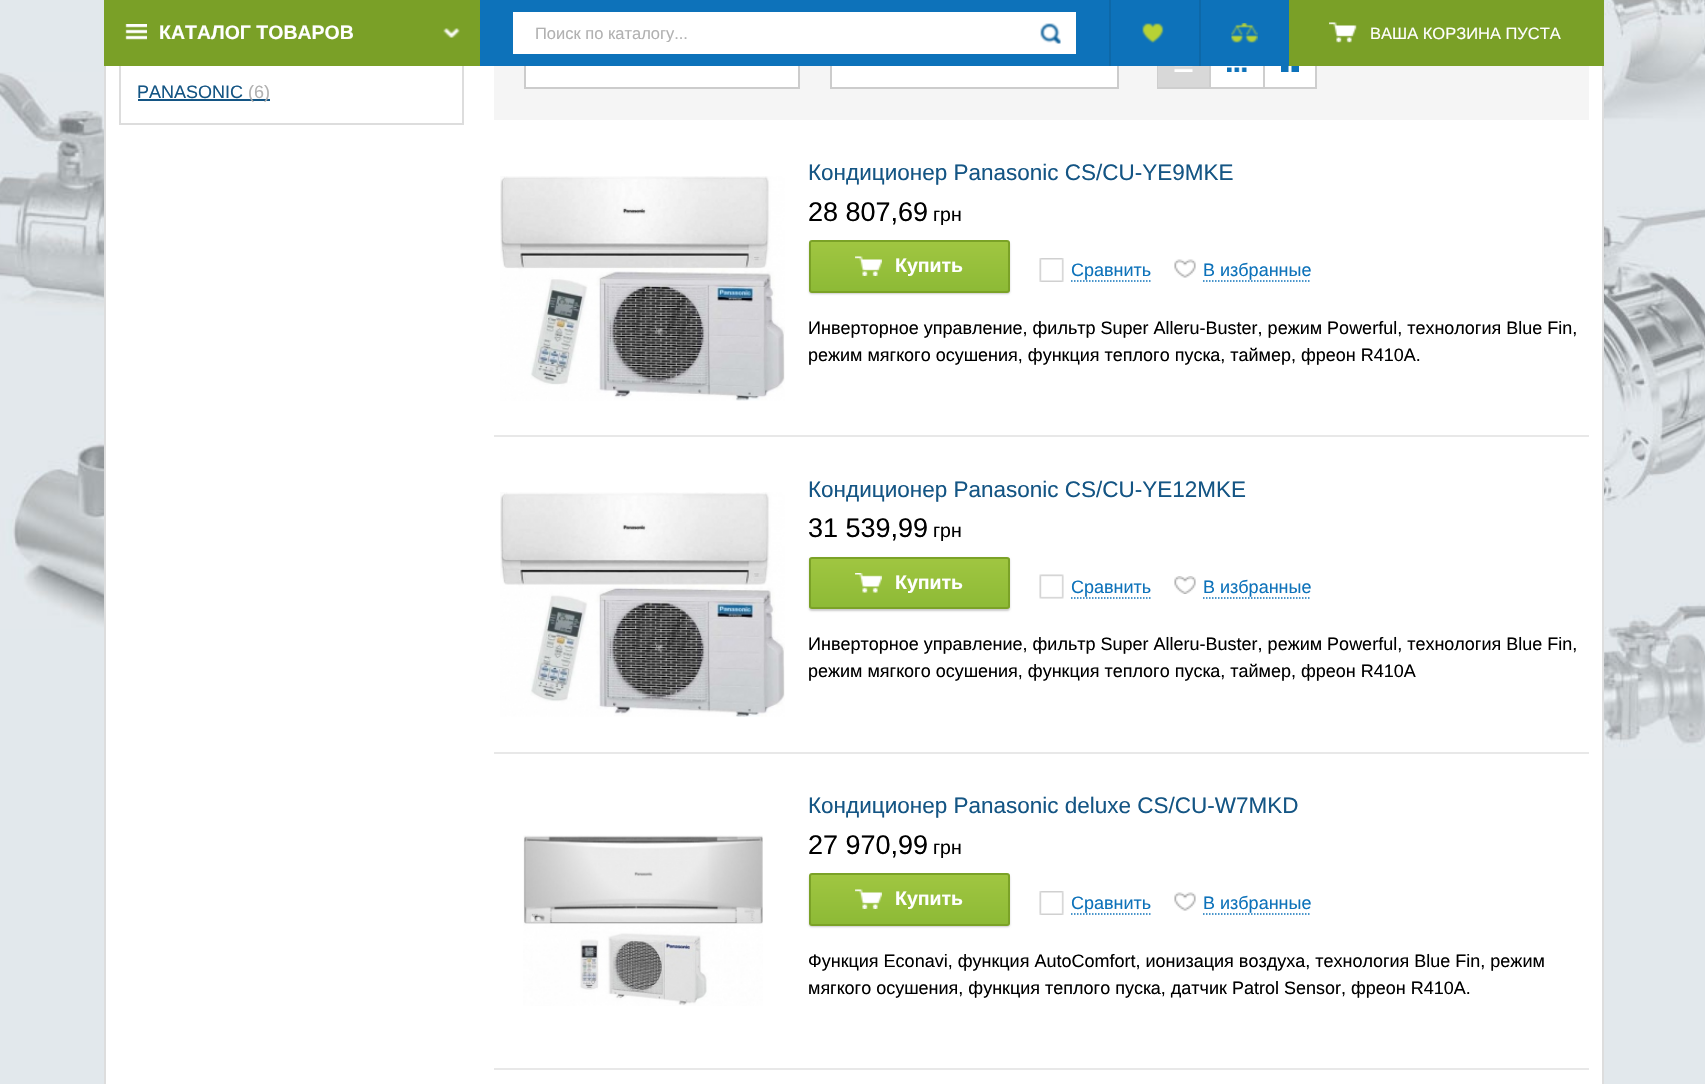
void draw(SkCanvas* canvas) {
  SkPaint paint;
  paint.setAntiAlias(true);
  auto face = [&](const char* family, int weight, float size, bool italic = false) {
    SkFontStyle style(weight, SkFontStyle::kNormal_Width,
      italic ? SkFontStyle::kItalic_Slant : SkFontStyle::kUpright_Slant);
    SkFont result(fontMgr->matchFamilyStyle(family, style), size);
    result.setSubpixel(true);
    return result;
  };
  auto paste = [&](const char* path, float x, float y, float w, float h) {
    auto image = SkImages::DeferredFromEncodedData(SkData::MakeFromFileName(path));
    canvas->drawImageRect(image, SkRect::MakeXYWH(x, y, w, h), SkSamplingOptions());
  };
  auto shape = [&](const char* data, bool evenOdd = false) {
    SkPath result = *SkParsePath::FromSVGString(data);
    if (evenOdd) result.setFillType(SkPathFillType::kEvenOdd);
    return result;
  };
  canvas->clear(0xffe2e8ec);
  paste("img/1.png", 0, 72, 104, 557);
  paste("img/2.png", 1604, 0, 101, 759);
  {
    const struct { float x, y, w, h; SkColor color; } items[] = {
      {106, 66, 1496, 1018, 0xffffffff},
      {494, 66, 1095, 54, 0xfff5f5f5},
      {526, 66, 272, 21, 0xffffffff},
    };
    for (auto [x, y, w, h, color] : items) {
      paint.setColor(color);
      canvas->drawRect(SkRect::MakeXYWH(x, y, w, h), paint);
    }
  }
  paint.setStroke(true);
  paint.setStrokeWidth(2);
  paint.setColor(0xffcccccc);
  canvas->drawRect(SkRect::MakeXYWH(525, 42, 274, 46), paint);
  paint.setStroke(false);
  paint.setColor(0xffffffff);
  canvas->drawRect(SkRect::MakeXYWH(832, 66, 285, 21), paint);
  paint.setStroke(true);
  paint.setColor(0xffcccccc);
  canvas->drawRect(SkRect::MakeXYWH(831, 42, 287, 46), paint);
  paint.setStroke(false);
  paint.setColor(0xffffffff);
  canvas->drawRect(SkRect::MakeXYWH(1211, 66, 104, 21), paint);
  paint.setStroke(true);
  paint.setColor(0xffcecece);
  canvas->drawRect(SkRect::MakeXYWH(1158, 42, 158, 46), paint);
  paint.setStroke(false);
  paint.setColor(0xff0d72ba);
  canvas->drawRect(SkRect::MakeXYWH(480, 0, 809, 66), paint);
  paint.setStroke(true);
  paint.setColor(0xffdddddd);
  canvas->drawRect(SkRect::MakeXYWH(120, -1, 343, 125), paint);
  paint.setStroke(false);
  paint.setColor(0xff7aa027);
  canvas->drawRect(SkRect::MakeXYWH(104, 0, 376, 66), paint);
  paste("img/3.png", 125, 24, 22, 16);
  paste("img/4.png", 443, 28, 17, 10);
  paint.setColor(0xffffffff);
  canvas->drawRect(SkRect::MakeXYWH(513, 12, 563, 42), paint);
  paste("img/5.png", 1040, 23, 21, 21);
  paint.setColor(0xff0d68a8);
  canvas->drawRect(SkRect::MakeXYWH(1109, 0, 2, 66), paint);
  paste("img/6.png", 1142, 23, 22, 20);
  canvas->drawRect(SkRect::MakeXYWH(1199, 0, 2, 66), paint);
  paste("img/7.png", 1231, 23, 27, 20);
  paint.setColor(0xff7aa027);
  canvas->drawRect(SkRect::MakeXYWH(1289, 0, 315, 66), paint);
  paste("img/8.png", 1329, 22, 28, 21);
  {
    const struct { float x, y, w, h; SkColor color; } items[] = {
      {104, 66, 2, 1018, 0xffdddddd},
      {138, 99, 132, 2, 0xff145584},
      {1158, 66, 51, 21, 0xffd8d8d8},
    };
    for (auto [x, y, w, h, color] : items) {
      paint.setColor(color);
      canvas->drawRect(SkRect::MakeXYWH(x, y, w, h), paint);
    }
  }
  paste("img/9.png", 1174, 66, 19, 6);
  paint.setColor(0xffcecece);
  canvas->drawRect(SkRect::MakeXYWH(1209, 66, 2, 21), paint);
  paste("img/10.png", 1227, 67, 20, 5);
  canvas->drawRect(SkRect::MakeXYWH(1263, 66, 2, 21), paint);
  paste("img/11.png", 1281, 66, 18, 6);
  paint.setColor(0xffe8e8e8);
  canvas->drawRect(SkRect::MakeXYWH(494, 435, 1095, 2), paint);
  paste("img/12.png", 500, 176, 285, 225);
  paint.setColor(0x33000000);
  paint.setMaskFilter(SkMaskFilter::MakeBlur(kNormal_SkBlurStyle, 1));
  canvas->drawRoundRect(SkRect::MakeXYWH(809, 242, 201, 52), 3, 3, paint);
  paint.setMaskFilter(nullptr);
  canvas->save();
  canvas->clipPath(shape("M812 240H1007C1008.5 240 1010 241.5 1010 243V290C1010 291.5 1008.5 293 1007 293H812C810.5 293 809 291.5 809 290V243C809 241.5 810.5 240 812 240Z"), true);
  {
    const SkColor colors[] = {0xffa0c641, 0xff8dba36};
    const float stops[] = {0, 1};
    const SkPoint ends[] = {{909, 242}, {909, 291}};
    paint.setShader(SkGradientShader::MakeLinear(ends, colors, stops, 2, SkTileMode::kClamp));
    paint.setAlpha(255);
  }
  canvas->drawRect(SkRect::MakeXYWH(809, 242, 201, 49), paint);
  canvas->restore();
  paint.setStroke(true);
  paint.setShader(nullptr);
  paint.setColor(0xff7ba227);
  canvas->drawRoundRect(SkRect::MakeXYWH(810, 241, 199, 51), 2, 2, paint);
  paste("img/13.png", 855, 256, 27, 20);
  paste("img/14.png", 1039, 258, 25, 24);
  paint.setStrokeWidth(1.5f);
  paint.setColor(0xff0d72ba);
  paint.setPathEffect(SkDashPathEffect::Make({{1.5f, 1.5f}}, 0));
  canvas->drawPath(shape("M1071 281H1152"), paint);
  paint.setPathEffect(nullptr);
  paste("img/15.png", 1174, 259, 22, 19);
  paint.setPathEffect(SkDashPathEffect::Make({{1.5f, 1.5f}}, 0));
  canvas->drawPath(shape("M1203 281H1311"), paint);
  paint.setPathEffect(nullptr);
  paint.setStroke(false);
  paint.setColor(0xffe8e8e8);
  canvas->drawRect(SkRect::MakeXYWH(494, 752, 1095, 2), paint);
  paste("img/16.png", 500, 492, 285, 225);
  paint.setColor(0x33000000);
  paint.setMaskFilter(SkMaskFilter::MakeBlur(kNormal_SkBlurStyle, 1));
  canvas->drawRoundRect(SkRect::MakeXYWH(809, 558, 201, 53), 3, 3, paint);
  paint.setMaskFilter(nullptr);
  canvas->save();
  canvas->clipPath(shape("M812 557H1007C1008.5 557 1010 558.5 1010 560V606C1010 607.5 1008.5 609 1007 609H812C810.5 609 809 607.5 809 606V560C809 558.5 810.5 557 812 557Z"), true);
  {
    const SkColor colors[] = {0xffa0c641, 0xff8dba36};
    const float stops[] = {0, 1};
    const SkPoint ends[] = {{909, 558}, {909, 608}};
    paint.setShader(SkGradientShader::MakeLinear(ends, colors, stops, 2, SkTileMode::kClamp));
    paint.setAlpha(255);
  }
  canvas->drawRect(SkRect::MakeXYWH(809, 558, 201, 50), paint);
  canvas->restore();
  paint.setStroke(true);
  paint.setStrokeWidth(2);
  paint.setShader(nullptr);
  paint.setColor(0xff7ba227);
  canvas->drawRoundRect(SkRect::MakeXYWH(810, 558, 199, 50), 2, 2, paint);
  paste("img/17.png", 855, 573, 27, 20);
  paste("img/18.png", 1039, 574, 25, 25);
  paint.setStrokeWidth(1.5f);
  paint.setColor(0xff0d72ba);
  paint.setPathEffect(SkDashPathEffect::Make({{1.5f, 1.5f}}, 0));
  canvas->drawPath(shape("M1071 598H1152"), paint);
  paint.setPathEffect(nullptr);
  paste("img/19.png", 1174, 576, 22, 18);
  paint.setPathEffect(SkDashPathEffect::Make({{1.5f, 1.5f}}, 0));
  canvas->drawPath(shape("M1203 598H1311"), paint);
  paint.setPathEffect(nullptr);
  paint.setStroke(false);
  paint.setColor(0xffe8e8e8);
  canvas->drawRect(SkRect::MakeXYWH(494, 1068, 1095, 2), paint);
  paste("img/20.png", 523, 835, 240, 171);
  paint.setColor(0x33000000);
  paint.setMaskFilter(SkMaskFilter::MakeBlur(kNormal_SkBlurStyle, 1));
  canvas->drawRoundRect(SkRect::MakeXYWH(809, 875, 201, 52), 3, 3, paint);
  paint.setMaskFilter(nullptr);
  canvas->save();
  canvas->clipPath(shape("M812 873H1007C1008.5 873 1010 874.5 1010 876V923C1010 924.5 1008.5 926 1007 926H812C810.5 926 809 924.5 809 923V876C809 874.5 810.5 873 812 873Z"), true);
  {
    const SkColor colors[] = {0xffa0c641, 0xff8dba36};
    const float stops[] = {0, 1};
    const SkPoint ends[] = {{909, 875}, {909, 924}};
    paint.setShader(SkGradientShader::MakeLinear(ends, colors, stops, 2, SkTileMode::kClamp));
    paint.setAlpha(255);
  }
  canvas->drawRect(SkRect::MakeXYWH(809, 875, 201, 49), paint);
  canvas->restore();
  paint.setStroke(true);
  paint.setStrokeWidth(2);
  paint.setShader(nullptr);
  paint.setColor(0xff7ba227);
  canvas->drawRoundRect(SkRect::MakeXYWH(810, 874, 199, 51), 2, 2, paint);
  paste("img/13.png", 855, 889, 27, 20);
  paste("img/14.png", 1039, 891, 25, 24);
  paint.setStrokeWidth(1.5f);
  paint.setColor(0xff0d72ba);
  paint.setPathEffect(SkDashPathEffect::Make({{1.5f, 1.5f}}, 0));
  canvas->drawPath(shape("M1071 914H1152"), paint);
  paint.setPathEffect(nullptr);
  paste("img/15.png", 1174, 892, 22, 19);
  paint.setPathEffect(SkDashPathEffect::Make({{1.5f, 1.5f}}, 0));
  canvas->drawPath(shape("M1203 914H1311"), paint);
  paint.setPathEffect(nullptr);
  paint.setStroke(false);
  paint.setColor(0xffdddddd);
  canvas->drawRect(SkRect::MakeXYWH(1602, 66, 2, 1018), paint);
  auto f0 = face("Liberation Sans", 700, 19.5f);
  paint.setColor(0xffffffff);
  canvas->drawString("КАТАЛОГ ТОВАРОВ", 159, 39, f0, paint);
  canvas->save();
  canvas->clipRect(SkRect::MakeXYWH(536, 24, 468, 18));
  auto f1 = face("Liberation Sans", 400, 16.5f);
  paint.setColor(0xffb1b1b1);
  canvas->drawString("Поиск по каталогу...", 535, 39, f1, paint);
  canvas->restore();
  paint.setColor(0xffffffff);
  canvas->drawString("ВАША КОРЗИНА ПУСТА", 1370, 39, f1, paint);
  auto f2 = face("Liberation Sans", 400, 18);
  paint.setColor(0xff145584);
  canvas->drawString("PANASONIC", 137, 98, f2, paint);
  paint.setColor(0xffb1b1b1);
  canvas->drawString("(6)", 248, 98, f2, paint);
  auto f3 = face("Liberation Sans", 400, 22.5f);
  paint.setColor(0xff145584);
  canvas->drawString("Кондиционер Panasonic CS/CU-YE9MKE", 808, 180, f3, paint);
  auto f4 = face("Liberation Sans", 400, 27);
  paint.setColor(0xff000000);
  canvas->drawString("28 807,69", 808, 221, f4, paint);
  auto f5 = face("Liberation Sans", 400, 19.5f);
  canvas->drawString("грн", 933, 221, f5, paint);
  paint.setColor(0xffffffff);
  canvas->drawString("Купить", 895, 272, f0, paint);
  paint.setColor(0xff0d72ba);
  canvas->drawString("Сравнить", 1071, 276, f2, paint);
  canvas->drawString("В избранные", 1203, 276, f2, paint);
  paint.setColor(0xff000000);
  canvas->drawString("Инверторное управление, фильтр Super Alleru-Buster, режим Powerful, технология Blue Fin,", 808, 334, f2, paint);
  canvas->drawString("режим мягкого осушения, функция теплого пуска, таймер, фреон R410A.", 808, 361, f2, paint);
  paint.setColor(0xff145584);
  canvas->drawString("Кондиционер Panasonic CS/CU-YE12MKE", 808, 497, f3, paint);
  paint.setColor(0xff000000);
  canvas->drawString("31 539,99", 808, 537, f4, paint);
  canvas->drawString("грн", 933, 537, f5, paint);
  paint.setColor(0xffffffff);
  canvas->drawString("Купить", 895, 589, f0, paint);
  paint.setColor(0xff0d72ba);
  canvas->drawString("Сравнить", 1071, 593, f2, paint);
  canvas->drawString("В избранные", 1203, 593, f2, paint);
  paint.setColor(0xff000000);
  canvas->drawString("Инверторное управление, фильтр Super Alleru-Buster, режим Powerful, технология Blue Fin,", 808, 650, f2, paint);
  canvas->drawString("режим мягкого осушения, функция теплого пуска, таймер, фреон R410A", 808, 677, f2, paint);
  paint.setColor(0xff145584);
  canvas->drawString("Кондиционер Panasonic deluxe CS/CU-W7MKD", 808, 813, f3, paint);
  paint.setColor(0xff000000);
  canvas->drawString("27 970,99", 808, 854, f4, paint);
  canvas->drawString("грн", 933, 854, f5, paint);
  paint.setColor(0xffffffff);
  canvas->drawString("Купить", 895, 905, f0, paint);
  paint.setColor(0xff0d72ba);
  canvas->drawString("Сравнить", 1071, 909, f2, paint);
  canvas->drawString("В избранные", 1203, 909, f2, paint);
  paint.setColor(0xff000000);
  canvas->drawString("Функция Econavi, функция AutoComfort, ионизация воздуха, технология Blue Fin, режим", 808, 967, f2, paint);
  canvas->drawString("мягкого осушения, функция теплого пуска, датчик Patrol Sensor, фреон R410A.", 808, 994, f2, paint);
}
